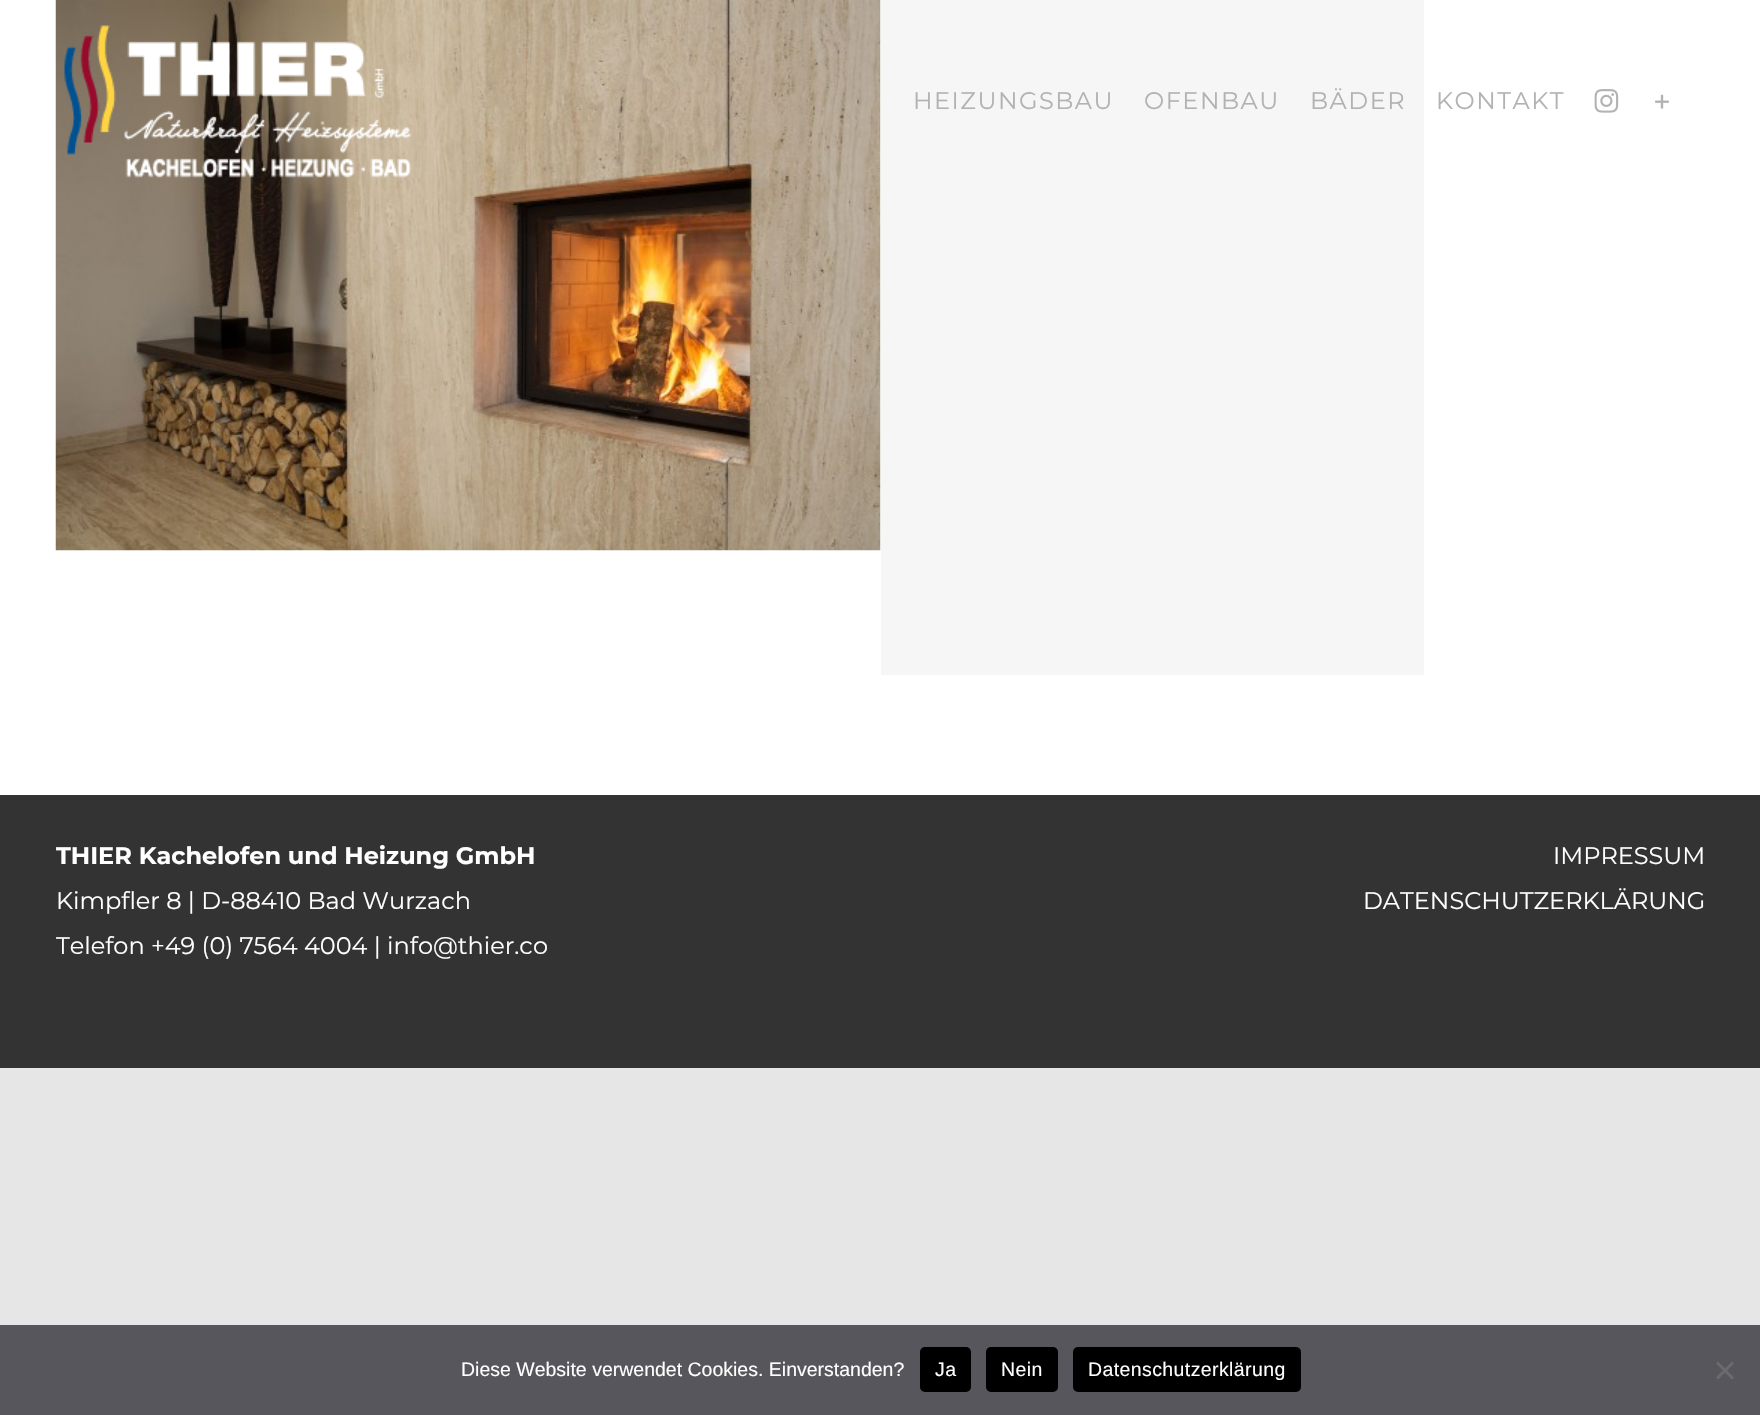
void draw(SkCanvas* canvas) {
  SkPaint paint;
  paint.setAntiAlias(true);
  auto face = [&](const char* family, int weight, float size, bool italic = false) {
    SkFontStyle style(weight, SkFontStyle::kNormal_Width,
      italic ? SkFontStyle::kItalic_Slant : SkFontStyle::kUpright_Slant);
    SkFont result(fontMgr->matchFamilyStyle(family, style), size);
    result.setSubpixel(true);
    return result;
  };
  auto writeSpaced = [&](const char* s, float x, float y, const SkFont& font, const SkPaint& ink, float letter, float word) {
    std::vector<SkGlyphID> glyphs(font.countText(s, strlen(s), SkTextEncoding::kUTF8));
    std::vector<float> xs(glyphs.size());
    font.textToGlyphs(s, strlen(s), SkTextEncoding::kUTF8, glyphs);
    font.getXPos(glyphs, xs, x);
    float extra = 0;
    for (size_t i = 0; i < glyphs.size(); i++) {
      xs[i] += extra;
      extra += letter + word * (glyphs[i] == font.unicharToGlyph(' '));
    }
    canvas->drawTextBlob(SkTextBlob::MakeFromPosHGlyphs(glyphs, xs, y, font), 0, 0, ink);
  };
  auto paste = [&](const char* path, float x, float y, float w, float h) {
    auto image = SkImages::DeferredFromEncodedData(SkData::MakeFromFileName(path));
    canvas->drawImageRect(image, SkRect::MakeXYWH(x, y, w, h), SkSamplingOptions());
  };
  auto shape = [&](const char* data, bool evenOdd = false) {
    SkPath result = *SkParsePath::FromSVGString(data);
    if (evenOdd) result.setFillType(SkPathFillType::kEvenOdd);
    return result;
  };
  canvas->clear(0xffe6e6e6);
  paint.setColor(0xffffffff);
  canvas->drawRect(SkRect::MakeXYWH(0, 0, 1760, 795), paint);
  paste("img/1.png", 55, 0, 826, 551);
  paint.setColor(0xfff6f6f6);
  canvas->drawRect(SkRect::MakeXYWH(881, 0, 543, 675), paint);
  paste("img/2.png", 64, 25, 348, 153);
  paste("img/3.png", 1594, 89, 25, 24);
  paste("img/4.png", 1655, 94, 14, 15);
  paint.setColor(0xff333333);
  canvas->drawRect(SkRect::MakeXYWH(0, 795, 1760, 273), paint);
  paint.setColor(0xff56565c);
  canvas->drawRect(SkRect::MakeXYWH(0, 1325, 1760, 90), paint);
  paint.setColor(0xff000000);
  canvas->drawRoundRect(SkRect::MakeXYWH(920, 1347, 51, 45), 5, 5, paint);
  canvas->drawRoundRect(SkRect::MakeXYWH(986, 1347, 72, 45), 5, 5, paint);
  canvas->drawRoundRect(SkRect::MakeXYWH(1073, 1347, 228, 45), 5, 5, paint);
  paint.setColor(0xff6b6b6e);
  canvas->drawPath(shape("M1732 1361.5L1734 1363.5L1718 1379.5L1716 1377.5Z"), paint);
  canvas->drawPath(shape("M1716 1363.5L1718 1361.5L1734 1377.5L1732 1379.5Z"), paint);
  auto f0 = face("Montserrat", 400, 24);
  paint.setColor(0xffb2b2b2);
  {
    const struct { const char* s; float x, y; } items[] = {
      {"HEIZUNGSBAU", 913, 109},
      {"OFENBAU", 1144, 109},
      {"BÄDER", 1310, 109},
      {"KONTAKT", 1436, 109},
    };
    for (auto [s, x, y] : items) {
      writeSpaced(s, x, y, f0, paint, 1.5f, 0);
    }
  }
  auto f1 = face("Montserrat", 700, 24);
  paint.setColor(0xffffffff);
  canvas->drawString("THIER Kachelofen und Heizung GmbH", 56, 864, f1, paint);
  {
    const struct { const char* s; float x, y; } items[] = {
      {"Kimpfler 8 | D-88410 Bad Wurzach", 56, 909},
      {"Telefon +49 (0) 7564 4004 | info@thier.co", 56, 954},
      {"IMPRESSUM", 1553, 864},
      {"DATENSCHUTZERKLÄRUNG", 1363, 909},
    };
    for (auto [s, x, y] : items) {
      canvas->drawString(s, x, y, f0, paint);
    }
  }
  auto f2 = face("Liberation Sans", 400, 19.5f);
  canvas->drawString("Diese Website verwendet Cookies. Einverstanden?", 461, 1376, f2, paint);
  {
    const struct { const char* s; float x, y; } items[] = {
      {"Ja", 935, 1376},
      {"Nein", 1001, 1376},
      {"Datenschutzerklärung", 1088, 1376},
    };
    for (auto [s, x, y] : items) {
      writeSpaced(s, x, y, f2, paint, 0.4f, 0);
    }
  }
}
